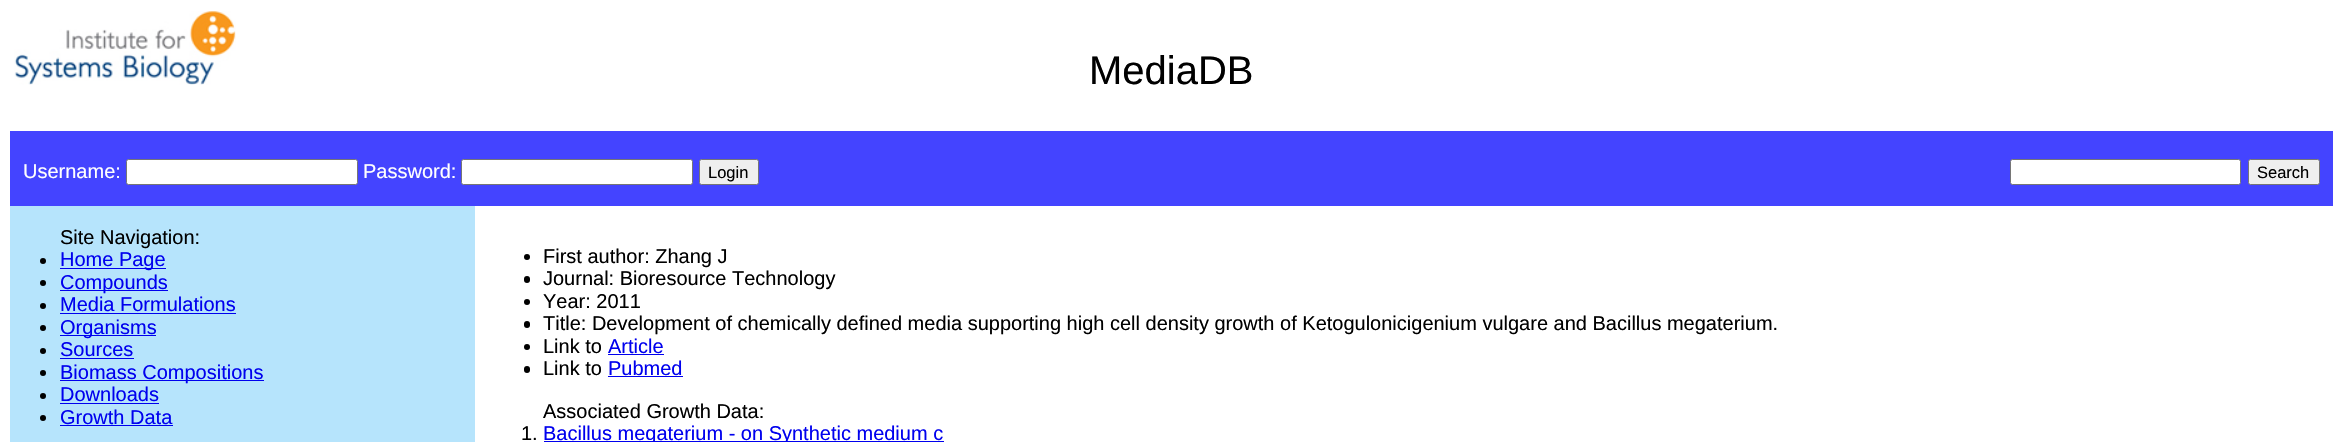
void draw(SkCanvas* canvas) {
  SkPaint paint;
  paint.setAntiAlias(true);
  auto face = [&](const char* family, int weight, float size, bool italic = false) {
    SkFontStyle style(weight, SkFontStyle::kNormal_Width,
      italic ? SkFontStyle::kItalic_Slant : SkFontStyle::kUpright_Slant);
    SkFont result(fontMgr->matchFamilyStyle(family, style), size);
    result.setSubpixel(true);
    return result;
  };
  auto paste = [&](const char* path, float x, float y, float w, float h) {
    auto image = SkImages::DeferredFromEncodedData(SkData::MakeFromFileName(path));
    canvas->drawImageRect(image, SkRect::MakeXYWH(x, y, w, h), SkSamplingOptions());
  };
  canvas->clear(0xffffffff);
  paste("img/1.png", 14, 11, 222, 74);
  paint.setColor(0xff4444ff);
  canvas->drawRect(SkRect::MakeXYWH(10, 131, 2323, 75), paint);
  paint.setColor(0xffffffff);
  canvas->drawRoundRect(SkRect::MakeXYWH(126.5f, 159.5f, 231, 25), 2, 2, paint);
  paint.setStroke(true);
  paint.setStrokeWidth(1);
  paint.setColor(0xff767676);
  canvas->drawRoundRect(SkRect::MakeXYWH(126.5f, 159.5f, 231, 25), 2, 2, paint);
  paint.setStroke(false);
  paint.setColor(0xffffffff);
  canvas->drawRoundRect(SkRect::MakeXYWH(461.5f, 159.5f, 231, 25), 2, 2, paint);
  paint.setStroke(true);
  paint.setColor(0xff767676);
  canvas->drawRoundRect(SkRect::MakeXYWH(461.5f, 159.5f, 231, 25), 2, 2, paint);
  paint.setStroke(false);
  paint.setColor(0xffefefef);
  canvas->drawRoundRect(SkRect::MakeXYWH(699.5f, 159.5f, 59, 25), 2, 2, paint);
  paint.setStroke(true);
  paint.setColor(0xff767676);
  canvas->drawRoundRect(SkRect::MakeXYWH(699.5f, 159.5f, 59, 25), 2, 2, paint);
  paint.setStroke(false);
  paint.setColor(0xffffffff);
  canvas->drawRoundRect(SkRect::MakeXYWH(2010.5f, 159.5f, 230, 25), 2, 2, paint);
  paint.setStroke(true);
  paint.setColor(0xff767676);
  canvas->drawRoundRect(SkRect::MakeXYWH(2010.5f, 159.5f, 230, 25), 2, 2, paint);
  paint.setStroke(false);
  paint.setColor(0xffefefef);
  canvas->drawRoundRect(SkRect::MakeXYWH(2248.5f, 159.5f, 71, 25), 2, 2, paint);
  paint.setStroke(true);
  paint.setColor(0xff767676);
  canvas->drawRoundRect(SkRect::MakeXYWH(2248.5f, 159.5f, 71, 25), 2, 2, paint);
  paint.setStroke(false);
  paint.setColor(0xffb6e4fc);
  canvas->drawRect(SkRect::MakeXYWH(10, 206, 465, 236), paint);
  paint.setColor(0xff000000);
  canvas->drawCircle(43, 261, 3, paint);
  paint.setColor(0xff0000ee);
  canvas->drawRect(SkRect::MakeXYWH(60, 268, 106, 1), paint);
  paint.setColor(0xff000000);
  canvas->drawCircle(43, 283, 3, paint);
  paint.setColor(0xff0000ee);
  canvas->drawRect(SkRect::MakeXYWH(60, 290, 108, 1), paint);
  paint.setColor(0xff000000);
  canvas->drawCircle(43, 306, 3, paint);
  paint.setColor(0xff0000ee);
  canvas->drawRect(SkRect::MakeXYWH(60, 313, 176, 1), paint);
  paint.setColor(0xff000000);
  canvas->drawCircle(43, 328, 3, paint);
  paint.setColor(0xff0000ee);
  canvas->drawRect(SkRect::MakeXYWH(60, 335, 96, 1), paint);
  paint.setColor(0xff000000);
  canvas->drawCircle(43, 351, 3, paint);
  paint.setColor(0xff0000ee);
  canvas->drawRect(SkRect::MakeXYWH(60, 358, 74, 1), paint);
  paint.setColor(0xff000000);
  canvas->drawCircle(43, 373, 3, paint);
  paint.setColor(0xff0000ee);
  canvas->drawRect(SkRect::MakeXYWH(60, 380, 204, 1), paint);
  paint.setColor(0xff000000);
  canvas->drawCircle(43, 396, 3, paint);
  paint.setColor(0xff0000ee);
  canvas->drawRect(SkRect::MakeXYWH(60, 403, 99, 1), paint);
  paint.setColor(0xff000000);
  canvas->drawCircle(43, 418, 3, paint);
  paint.setColor(0xff0000ee);
  canvas->drawRect(SkRect::MakeXYWH(60, 425, 113, 1), paint);
  paint.setColor(0xff000000);
  canvas->drawCircle(527, 257, 3, paint);
  canvas->drawRoundRect(SkRect::MakeXYWH(524, 276, 6, 7), 3, 3, paint);
  canvas->drawCircle(527, 302, 3, paint);
  canvas->drawRoundRect(SkRect::MakeXYWH(524, 321, 6, 7), 3, 3, paint);
  canvas->drawCircle(527, 347, 3, paint);
  paint.setColor(0xff0000ee);
  canvas->drawRect(SkRect::MakeXYWH(608, 354, 56, 1), paint);
  paint.setColor(0xff000000);
  canvas->drawRoundRect(SkRect::MakeXYWH(524, 366, 6, 7), 3, 3, paint);
  paint.setColor(0xff0000ee);
  canvas->drawRect(SkRect::MakeXYWH(608, 376, 75, 1), paint);
  canvas->drawRect(SkRect::MakeXYWH(544, 441, 400, 1), paint);
  auto f0 = face("Liberation Sans", 400, 40);
  paint.setColor(0xff000000);
  canvas->drawString("MediaDB", 1089, 84, f0, paint);
  auto f1 = face("Liberation Sans", 400, 20);
  paint.setColor(0xffffffff);
  canvas->drawString("Username:", 23, 178, f1, paint);
  canvas->drawString("Password:", 363, 178, f1, paint);
  auto f2 = face("Liberation Sans", 400, 16.5f);
  paint.setColor(0xff000000);
  canvas->drawString("Login", 708, 178, f2, paint);
  canvas->drawString("Search", 2257, 178, f2, paint);
  canvas->drawString("Site Navigation:", 60, 244, f1, paint);
  paint.setColor(0xff0000ee);
  {
    const struct { const char* s; float x, y; } items[] = {
      {"Home Page", 60, 266},
      {"Compounds", 60, 289},
      {"Media Formulations", 60, 311},
      {"Organisms", 60, 334},
      {"Sources", 60, 356},
      {"Biomass Compositions", 60, 379},
      {"Downloads", 60, 401},
      {"Growth Data", 60, 424},
    };
    for (auto [s, x, y] : items) {
      canvas->drawString(s, x, y, f1, paint);
    }
  }
  paint.setColor(0xff000000);
  {
    const struct { const char* s; float x, y; } items[] = {
      {"First author: Zhang J", 543, 263},
      {"Journal: Bioresource Technology", 543, 285},
      {"Year: 2011", 543, 308},
      {"Title: Development of chemically defined media supporting high cell density growth of Ketogulonicigenium vulgare and Bacillus megaterium.", 543, 330},
      {"Link to", 543, 353},
    };
    for (auto [s, x, y] : items) {
      canvas->drawString(s, x, y, f1, paint);
    }
  }
  paint.setColor(0xff0000ee);
  canvas->drawString("Article", 608, 353, f1, paint);
  paint.setColor(0xff000000);
  canvas->drawString("Link to", 543, 375, f1, paint);
  paint.setColor(0xff0000ee);
  canvas->drawString("Pubmed", 608, 375, f1, paint);
  paint.setColor(0xff000000);
  canvas->drawString("Associated Growth Data:", 543, 418, f1, paint);
  canvas->drawString("1.", 521, 440, f1, paint);
  paint.setColor(0xff0000ee);
  canvas->drawString("Bacillus megaterium - on Synthetic medium c", 543, 440, f1, paint);
}
